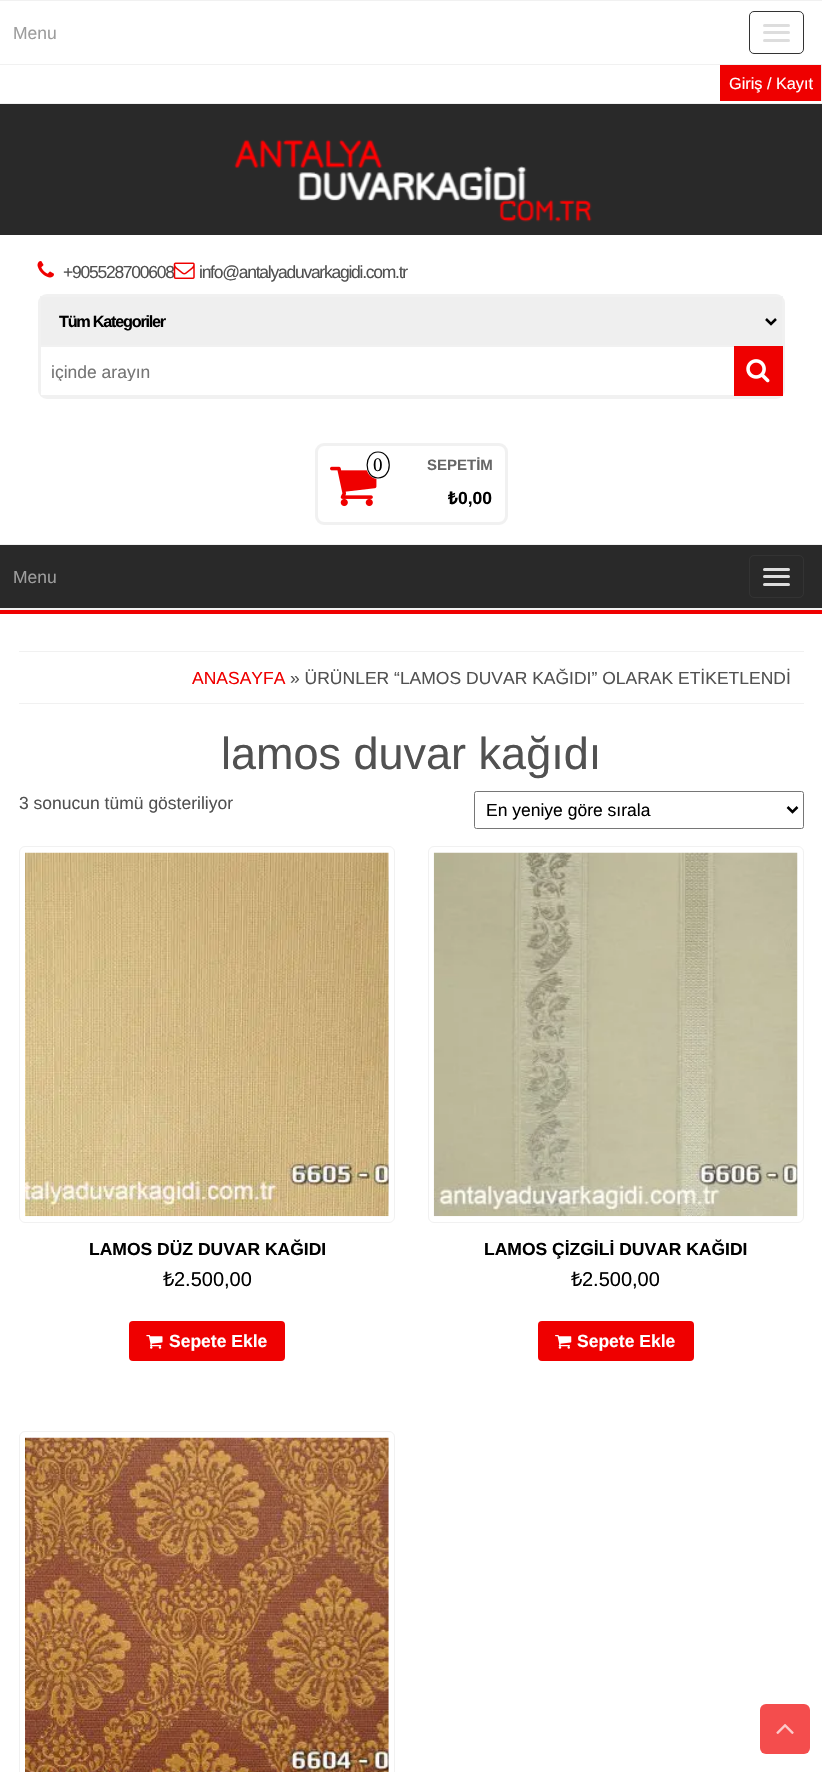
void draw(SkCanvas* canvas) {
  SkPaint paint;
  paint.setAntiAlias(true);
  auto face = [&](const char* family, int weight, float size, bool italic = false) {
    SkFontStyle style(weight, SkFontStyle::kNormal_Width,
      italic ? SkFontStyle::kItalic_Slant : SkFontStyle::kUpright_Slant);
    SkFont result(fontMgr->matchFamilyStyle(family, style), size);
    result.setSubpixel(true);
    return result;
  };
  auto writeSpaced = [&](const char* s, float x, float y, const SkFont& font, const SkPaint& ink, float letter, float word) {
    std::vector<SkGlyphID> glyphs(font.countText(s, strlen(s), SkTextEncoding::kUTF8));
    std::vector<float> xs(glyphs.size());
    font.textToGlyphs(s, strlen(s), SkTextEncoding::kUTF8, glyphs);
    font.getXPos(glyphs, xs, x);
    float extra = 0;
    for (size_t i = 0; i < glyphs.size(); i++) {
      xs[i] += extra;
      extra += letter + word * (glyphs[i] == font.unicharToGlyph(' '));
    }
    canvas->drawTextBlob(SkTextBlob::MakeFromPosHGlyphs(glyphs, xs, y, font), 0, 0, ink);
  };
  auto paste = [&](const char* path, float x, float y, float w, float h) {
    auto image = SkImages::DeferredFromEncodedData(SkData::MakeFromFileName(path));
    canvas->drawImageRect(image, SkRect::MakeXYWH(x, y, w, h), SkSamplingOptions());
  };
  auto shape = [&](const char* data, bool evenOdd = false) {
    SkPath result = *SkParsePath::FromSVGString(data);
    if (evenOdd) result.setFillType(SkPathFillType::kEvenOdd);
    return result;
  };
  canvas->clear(0xffffffff);
  {
    const struct { float x, y, w, h; SkColor color; } items[] = {
      {0, 610, 822, 4, 0xffef0000},
      {0, 103, 822, 1, 0xfff1f1f1},
      {0, 0, 822, 1, 0xfff1f1f1},
      {0, 64, 822, 1, 0xfff1f1f1},
    };
    for (auto [x, y, w, h, color] : items) {
      paint.setColor(color);
      canvas->drawRect(SkRect::MakeXYWH(x, y, w, h), paint);
    }
  }
  paint.setStroke(true);
  paint.setStrokeWidth(1);
  paint.setColor(0xff333333);
  canvas->drawRoundRect(SkRect::MakeXYWH(749.5f, 11.5f, 54, 42), 4.5f, 4.5f, paint);
  paint.setStroke(false);
  paint.setColor(0xffdddddd);
  canvas->drawRoundRect(SkRect::MakeXYWH(763, 24, 27, 3), 1.5f, 1.5f, paint);
  canvas->drawRoundRect(SkRect::MakeXYWH(763, 31, 27, 3), 1.5f, 1.5f, paint);
  canvas->drawRoundRect(SkRect::MakeXYWH(763, 39, 27, 3), 1.5f, 1.5f, paint);
  {
    const struct { float x, y, w, h; SkColor color; } items[] = {
      {720, 65, 101, 36, 0xffef0000},
      {821, 65, 1, 36, 0xfff1f1f1},
      {0, 104, 822, 504, 0xff292929},
      {0, 608, 822, 2, 0xfff1f1f1},
    };
    for (auto [x, y, w, h, color] : items) {
      paint.setColor(color);
      canvas->drawRect(SkRect::MakeXYWH(x, y, w, h), paint);
    }
  }
  paste("img/1.png", 234, 139, 358, 83);
  paint.setColor(0xffffffff);
  canvas->drawRect(SkRect::MakeXYWH(0, 235, 822, 309), paint);
  paste("img/2.png", 37, 261, 17, 17);
  paint.setStroke(true);
  paint.setStrokeWidth(3);
  paint.setColor(0xfff1f1f1);
  canvas->drawRoundRect(SkRect::MakeXYWH(39.5f, 295.5f, 744, 102), 7.5f, 7.5f, paint);
  paint.setStroke(false);
  paint.setColor(0xffefefef);
  canvas->drawRect(SkRect::MakeXYWH(40.5f, 296.5f, 742, 49), paint);
  paint.setStroke(true);
  paint.setStrokeWidth(1);
  paint.setColor(0xfff1f1f1);
  canvas->drawRect(SkRect::MakeXYWH(40.5f, 296.5f, 742, 49), paint);
  paint.setStrokeWidth(2.5f);
  paint.setColor(0xff000000);
  canvas->drawPath(shape("M766 319L771 324L776 319"), paint);
  paint.setStroke(false);
  paint.setColor(0xffffffff);
  canvas->drawRect(SkRect::MakeXYWH(41, 391, 3, 4), paint);
  paint.setStroke(true);
  paint.setStrokeWidth(1);
  paint.setColor(0xfff1f1f1);
  canvas->drawRect(SkRect::MakeXYWH(40.5f, 346.5f, 742, 49), paint);
  paint.setStroke(false);
  paint.setColor(0xffef0000);
  canvas->drawRect(SkRect::MakeXYWH(734, 346, 49, 50), paint);
  paste("img/4.png", 746, 359, 24, 24);
  paint.setStroke(true);
  paint.setStrokeWidth(3);
  paint.setColor(0xfff1f1f1);
  canvas->drawRoundRect(SkRect::MakeXYWH(316.5f, 444.5f, 190, 79), 7.5f, 7.5f, paint);
  paste("img/5.png", 330, 466, 47, 41);
  paint.setStroke(false);
  paint.setColor(0xffffffff);
  canvas->drawOval(SkRect::MakeXYWH(366, 451, 24, 28), paint);
  paint.setStroke(true);
  paint.setStrokeWidth(1.2f);
  paint.setColor(0xff000000);
  canvas->drawPath(shape("M378 452C393 452 393 478 378 478C363.5 478 363.5 452 378 452Z"), paint);
  paint.setStroke(false);
  paint.setColor(0xfff1f1f1);
  canvas->drawRect(SkRect::MakeXYWH(0, 544, 822, 1), paint);
  paint.setStroke(true);
  paint.setStrokeWidth(1);
  paint.setColor(0xff333333);
  canvas->drawRoundRect(SkRect::MakeXYWH(749.5f, 555.5f, 54, 42), 4.5f, 4.5f, paint);
  paint.setStroke(false);
  paint.setColor(0xffdddddd);
  canvas->drawRoundRect(SkRect::MakeXYWH(763, 568, 27, 3), 1.5f, 1.5f, paint);
  canvas->drawRoundRect(SkRect::MakeXYWH(763, 575, 27, 3), 1.5f, 1.5f, paint);
  canvas->drawRoundRect(SkRect::MakeXYWH(763, 583, 27, 3), 1.5f, 1.5f, paint);
  paint.setColor(0xfff1f1f1);
  canvas->drawRect(SkRect::MakeXYWH(19, 651, 785, 1), paint);
  canvas->drawRect(SkRect::MakeXYWH(19, 703, 785, 1), paint);
  paint.setStroke(true);
  paint.setColor(0xff767676);
  canvas->drawRoundRect(SkRect::MakeXYWH(474.5f, 791.5f, 329, 37), 2, 2, paint);
  paint.setStrokeWidth(2.5f);
  paint.setColor(0xff000000);
  canvas->drawPath(shape("M787.5 807L792.5 812L797.5 807"), paint);
  paint.setStrokeWidth(1);
  paint.setColor(0xfff1f1f1);
  canvas->drawRoundRect(SkRect::MakeXYWH(19.5f, 846.5f, 375, 376), 5.5f, 5.5f, paint);
  paste("img/6.png", 25, 852, 364, 365);
  paint.setStroke(false);
  paint.setColor(0xffef0000);
  canvas->drawRoundRect(SkRect::MakeXYWH(129, 1321, 156, 40), 4, 4, paint);
  paste("img/7.png", 146, 1335, 17, 14);
  paint.setStroke(true);
  paint.setColor(0xfff1f1f1);
  canvas->drawRoundRect(SkRect::MakeXYWH(428.5f, 846.5f, 375, 376), 5.5f, 5.5f, paint);
  paste("img/8.png", 433, 852, 365, 365);
  paint.setStroke(false);
  paint.setColor(0xffef0000);
  canvas->drawRoundRect(SkRect::MakeXYWH(538, 1321, 156, 40), 4, 4, paint);
  paste("img/9.png", 555, 1335, 17, 14);
  paint.setStroke(true);
  paint.setColor(0xfff1f1f1);
  canvas->drawRoundRect(SkRect::MakeXYWH(19.5f, 1431.5f, 375, 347), 5.5f, 5.5f, paint);
  paste("img/10.png", 25, 1437, 364, 335);
  paint.setStroke(false);
  paint.setColor(0xfff44d4d);
  canvas->drawRoundRect(SkRect::MakeXYWH(760, 1704, 50, 50), 6, 6, paint);
  paste("img/11.png", 776, 1724, 18, 10);
  auto f0 = face("Liberation Sans", 400, 17.5f);
  paint.setColor(0xff9d9d9d);
  canvas->drawString("Menu", 13, 39, f0, paint);
  auto f1 = face("Liberation Sans", 400, 16.25f);
  paint.setColor(0xffffffff);
  canvas->drawString("Giriş / Kayıt", 729, 89, f1, paint);
  paint.setColor(0xff515151);
  writeSpaced("+905528700608", 63, 278, f0, paint, -1.25f, 0);
  paste("img/3.png", 173, 262, 22, 17);
  writeSpaced("info@antalyaduvarkagidi.com.tr", 199, 278, f0, paint, -1.25f, 0);
  auto f2 = face("Liberation Sans", 700, 16.25f);
  paint.setColor(0xff000000);
  writeSpaced("Tüm Kategoriler", 59, 327, f2, paint, -1.25f, 0);
  canvas->save();
  canvas->clipRect(SkRect::MakeXYWH(51, 361, 720, 20));
  paint.setColor(0xff757575);
  canvas->drawString("içinde arayın", 51, 378, f0, paint);
  canvas->restore();
  auto f3 = face("Liberation Serif", 400, 19);
  paint.setColor(0xff000000);
  canvas->drawString("0", 373, 471, f3, paint);
  auto f4 = face("Liberation Sans", 700, 15);
  paint.setColor(0xff666666);
  canvas->drawString("SEPETİM", 427, 470, f4, paint);
  auto f5 = face("Noto Sans", 700, 17.5f);
  paint.setColor(0xff000000);
  canvas->drawString("₺", 448, 504, f5, paint);
  auto f6 = face("Liberation Sans", 700, 17.5f);
  canvas->drawString("0,00", 458, 504, f6, paint);
  paint.setColor(0xff9d9d9d);
  canvas->drawString("Menu", 13, 583, f0, paint);
  paint.setColor(0xffef0000);
  canvas->drawString("ANASAYFA", 192, 684, f0, paint);
  paint.setColor(0xff515151);
  canvas->drawString("» ÜRÜNLER “LAMOS DUVAR KAĞIDI” OLARAK ETİKETLENDİ", 290, 684, f0, paint);
  auto f7 = face("Liberation Sans", 400, 45);
  canvas->drawString("lamos duvar kağıdı", 221, 769, f7, paint);
  canvas->drawString("3 sonucun tümü gösteriliyor", 19, 809, f0, paint);
  paint.setColor(0xff000000);
  canvas->drawString("En yeniye göre sırala", 486, 816, f0, paint);
  canvas->drawString("LAMOS DÜZ DUVAR KAĞIDI", 89, 1255, f6, paint);
  auto f8 = face("Noto Sans", 400, 20);
  canvas->drawString("₺", 163, 1286, f8, paint);
  auto f9 = face("Liberation Sans", 400, 20);
  canvas->drawString("2.500,00", 174, 1286, f9, paint);
  paint.setColor(0xffffffff);
  canvas->drawString("Sepete Ekle", 169, 1347, f6, paint);
  paint.setColor(0xff000000);
  canvas->drawString("LAMOS ÇİZGİLİ DUVAR KAĞIDI", 484, 1255, f6, paint);
  canvas->drawString("₺", 571, 1286, f8, paint);
  canvas->drawString("2.500,00", 582, 1286, f9, paint);
  paint.setColor(0xffffffff);
  canvas->drawString("Sepete Ekle", 577, 1347, f6, paint);
}
